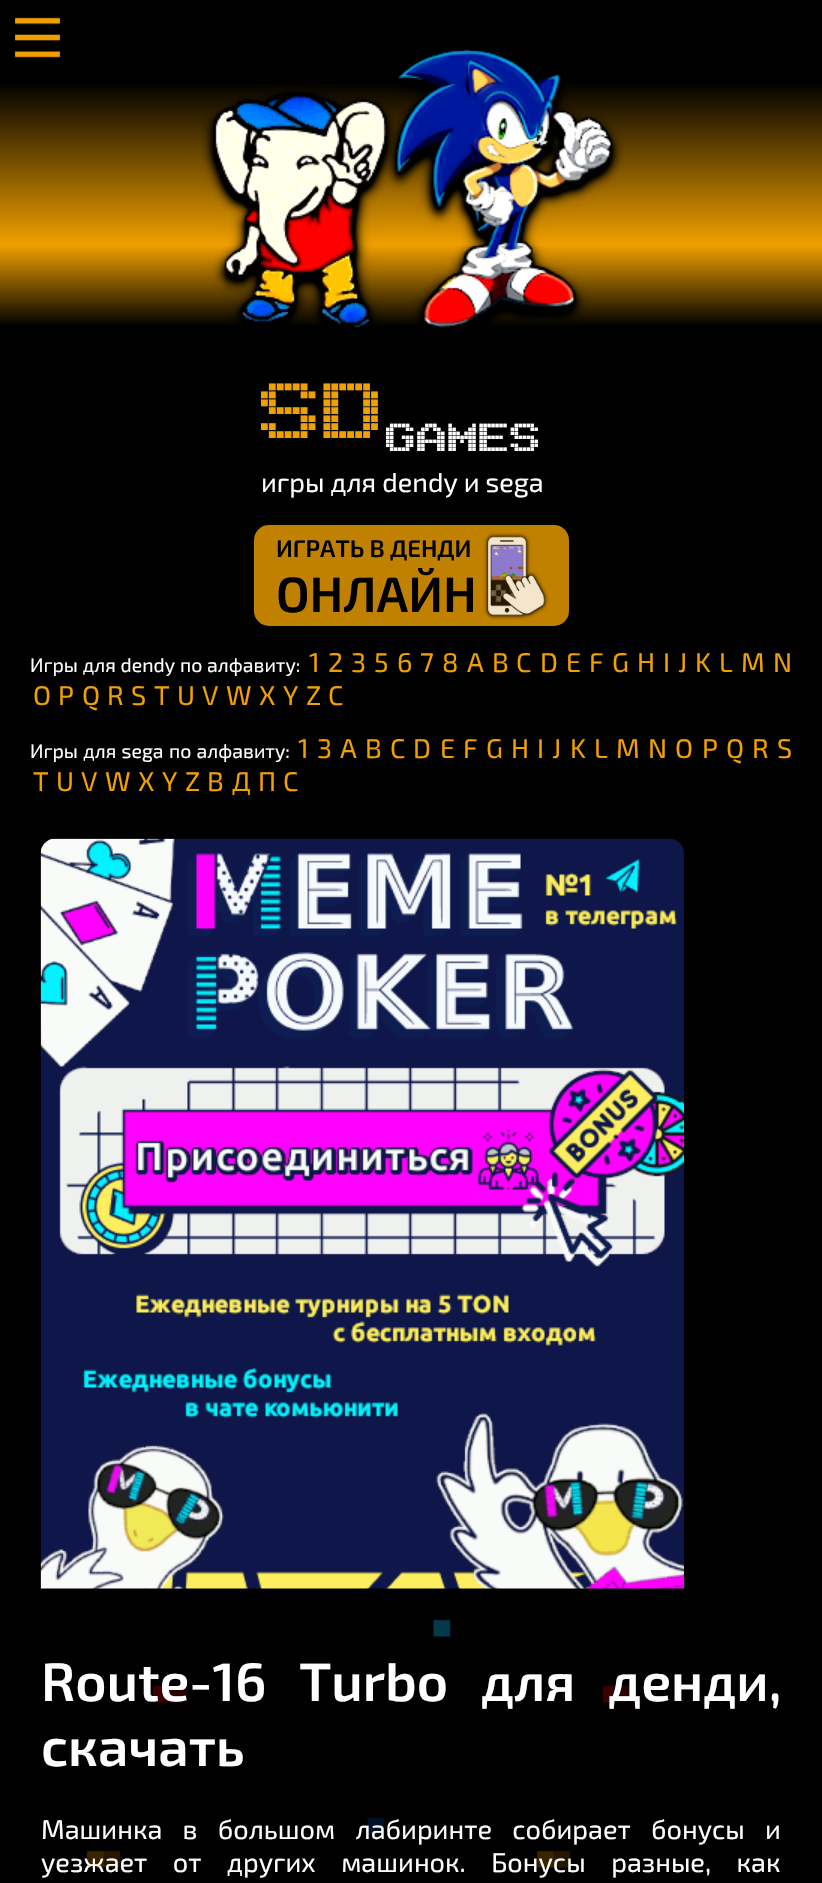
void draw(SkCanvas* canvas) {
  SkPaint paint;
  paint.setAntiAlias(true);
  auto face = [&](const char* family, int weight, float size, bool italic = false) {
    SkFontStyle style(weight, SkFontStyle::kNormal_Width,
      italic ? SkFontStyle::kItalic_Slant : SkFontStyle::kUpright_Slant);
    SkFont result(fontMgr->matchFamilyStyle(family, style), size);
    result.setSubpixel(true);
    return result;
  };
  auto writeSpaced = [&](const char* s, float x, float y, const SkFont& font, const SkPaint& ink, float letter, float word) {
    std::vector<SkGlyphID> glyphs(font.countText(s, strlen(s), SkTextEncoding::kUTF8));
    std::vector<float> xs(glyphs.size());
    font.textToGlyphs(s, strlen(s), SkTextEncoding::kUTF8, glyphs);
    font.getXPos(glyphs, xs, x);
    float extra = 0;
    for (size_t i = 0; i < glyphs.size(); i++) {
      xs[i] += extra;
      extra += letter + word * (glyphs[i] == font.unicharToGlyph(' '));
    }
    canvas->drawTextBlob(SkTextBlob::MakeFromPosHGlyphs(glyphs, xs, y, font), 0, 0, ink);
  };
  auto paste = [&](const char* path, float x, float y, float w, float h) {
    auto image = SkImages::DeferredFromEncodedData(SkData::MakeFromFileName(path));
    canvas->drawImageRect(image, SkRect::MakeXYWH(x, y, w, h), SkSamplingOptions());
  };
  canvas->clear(0xff000000);
  paste("img/1.png", 15, 17, 45, 41);
  {
    const SkColor colors[] = {0xff000000, 0xfff0a000, 0xff000000};
    const float stops[] = {0.6f, 0.7f, 0.9f};
    const SkPoint ends[] = {{411, 816}, {411, 0}};
    paint.setShader(SkGradientShader::MakeLinear(ends, colors, stops, 3, SkTileMode::kClamp));
    paint.setAlpha(255);
  }
  canvas->drawRect(SkRect::MakeXYWH(0, 83, 822, 243), paint);
  paste("img/2.png", 201, 49, 423, 279);
  paint.setShader(nullptr);
  paint.setColor(0xffc08000);
  canvas->drawRoundRect(SkRect::MakeXYWH(254, 525, 315, 101), 15, 15, paint);
  paste("img/3.png", 483, 532, 66, 88);
  paste("img/4.png", 40, 838, 644, 751);
  paste("img/5.png", 86, 1619, 551, 249);
  auto f0 = face("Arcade", 400, 120);
  paint.setColor(0xfff0a000);
  canvas->drawString("SD", 261, 464, f0, paint);
  auto f1 = face("Arcade", 400, 60);
  paint.setColor(0xffffffff);
  canvas->drawString("GAMES", 386, 464, f1, paint);
  auto f2 = face("Exo 2", 400, 27);
  canvas->drawString("игры для dendy и sega", 261, 492, f2, paint);
  auto f3 = face("Exo 2", 600, 24);
  paint.setColor(0xff000000);
  canvas->drawString("ИГРАТЬ В ДЕНДИ", 276, 557, f3, paint);
  auto f4 = face("Exo 2", 600, 49.5f);
  canvas->drawString("ОНЛАЙН", 276, 612, f4, paint);
  auto f5 = face("Exo 2", 400, 19.5f);
  paint.setColor(0xffffffff);
  writeSpaced("Игры для dendy по алфавиту:", 30, 672, f5, paint, 0, 0.5f);
  paint.setColor(0xfff0a000);
  {
    const struct { const char* s; float x, y; } items[] = {
      {"1", 309, 672},
      {"2", 328, 672},
      {"3", 351, 672},
      {"5", 374, 672},
      {"6", 397, 672},
      {"7", 420, 672},
      {"8", 442, 672},
      {"A", 467, 672},
      {"B", 492, 672},
      {"C", 516, 672},
      {"D", 540, 672},
      {"E", 566, 672},
      {"F", 589, 672},
      {"G", 612, 672},
      {"H", 637, 672},
      {"I", 663, 672},
      {"J", 678, 672},
      {"K", 695, 672},
      {"L", 719, 672},
      {"M", 741, 672},
      {"N", 773, 672},
      {"O", 33, 705},
      {"P", 58, 705},
      {"Q", 82, 705},
      {"R", 107, 705},
      {"S", 131, 705},
      {"T", 154, 705},
      {"U", 177, 705},
      {"V", 202, 705},
      {"W", 226, 705},
      {"X", 259, 705},
      {"Y", 283, 705},
      {"Z", 306, 705},
      {"С", 328, 705},
    };
    for (auto [s, x, y] : items) {
      canvas->drawString(s, x, y, f2, paint);
    }
  }
  paint.setColor(0xffffffff);
  writeSpaced("Игры для sega по алфавиту:", 30, 758, f5, paint, 0, 1);
  paint.setColor(0xfff0a000);
  {
    const struct { const char* s; float x, y; } items[] = {
      {"1", 298, 758},
      {"3", 317, 758},
      {"A", 340, 758},
      {"B", 365, 758},
      {"C", 390, 758},
      {"D", 413, 758},
      {"E", 440, 758},
      {"F", 463, 758},
      {"G", 486, 758},
      {"H", 511, 758},
      {"I", 537, 758},
      {"J", 552, 758},
      {"K", 570, 758},
      {"L", 594, 758},
      {"M", 616, 758},
      {"N", 648, 758},
      {"O", 675, 758},
      {"P", 702, 758},
      {"Q", 726, 758},
      {"R", 752, 758},
      {"S", 777, 758},
      {"T", 33, 791},
      {"U", 56, 791},
      {"V", 81, 791},
      {"W", 105, 791},
      {"X", 138, 791},
      {"Y", 162, 791},
      {"Z", 185, 791},
      {"В", 207, 791},
      {"Д", 232, 791},
      {"П", 258, 791},
      {"С", 283, 791},
    };
    for (auto [s, x, y] : items) {
      canvas->drawString(s, x, y, f2, paint);
    }
  }
  auto f6 = face("Exo 2", 600, 54);
  paint.setColor(0xffffffff);
  writeSpaced("Route-16 Turbo для денди,", 41, 1701, f6, paint, 0, 21);
  canvas->drawString("скачать", 41, 1766, f6, paint);
  writeSpaced("Машинка в большом лабиринте собирает бонусы и", 41, 1839, f2, paint, 0, 14.25f);
  writeSpaced("уезжает от других машинок. Бонусы разные, как", 41, 1872, f2, paint, 0, 19.5f);
}
